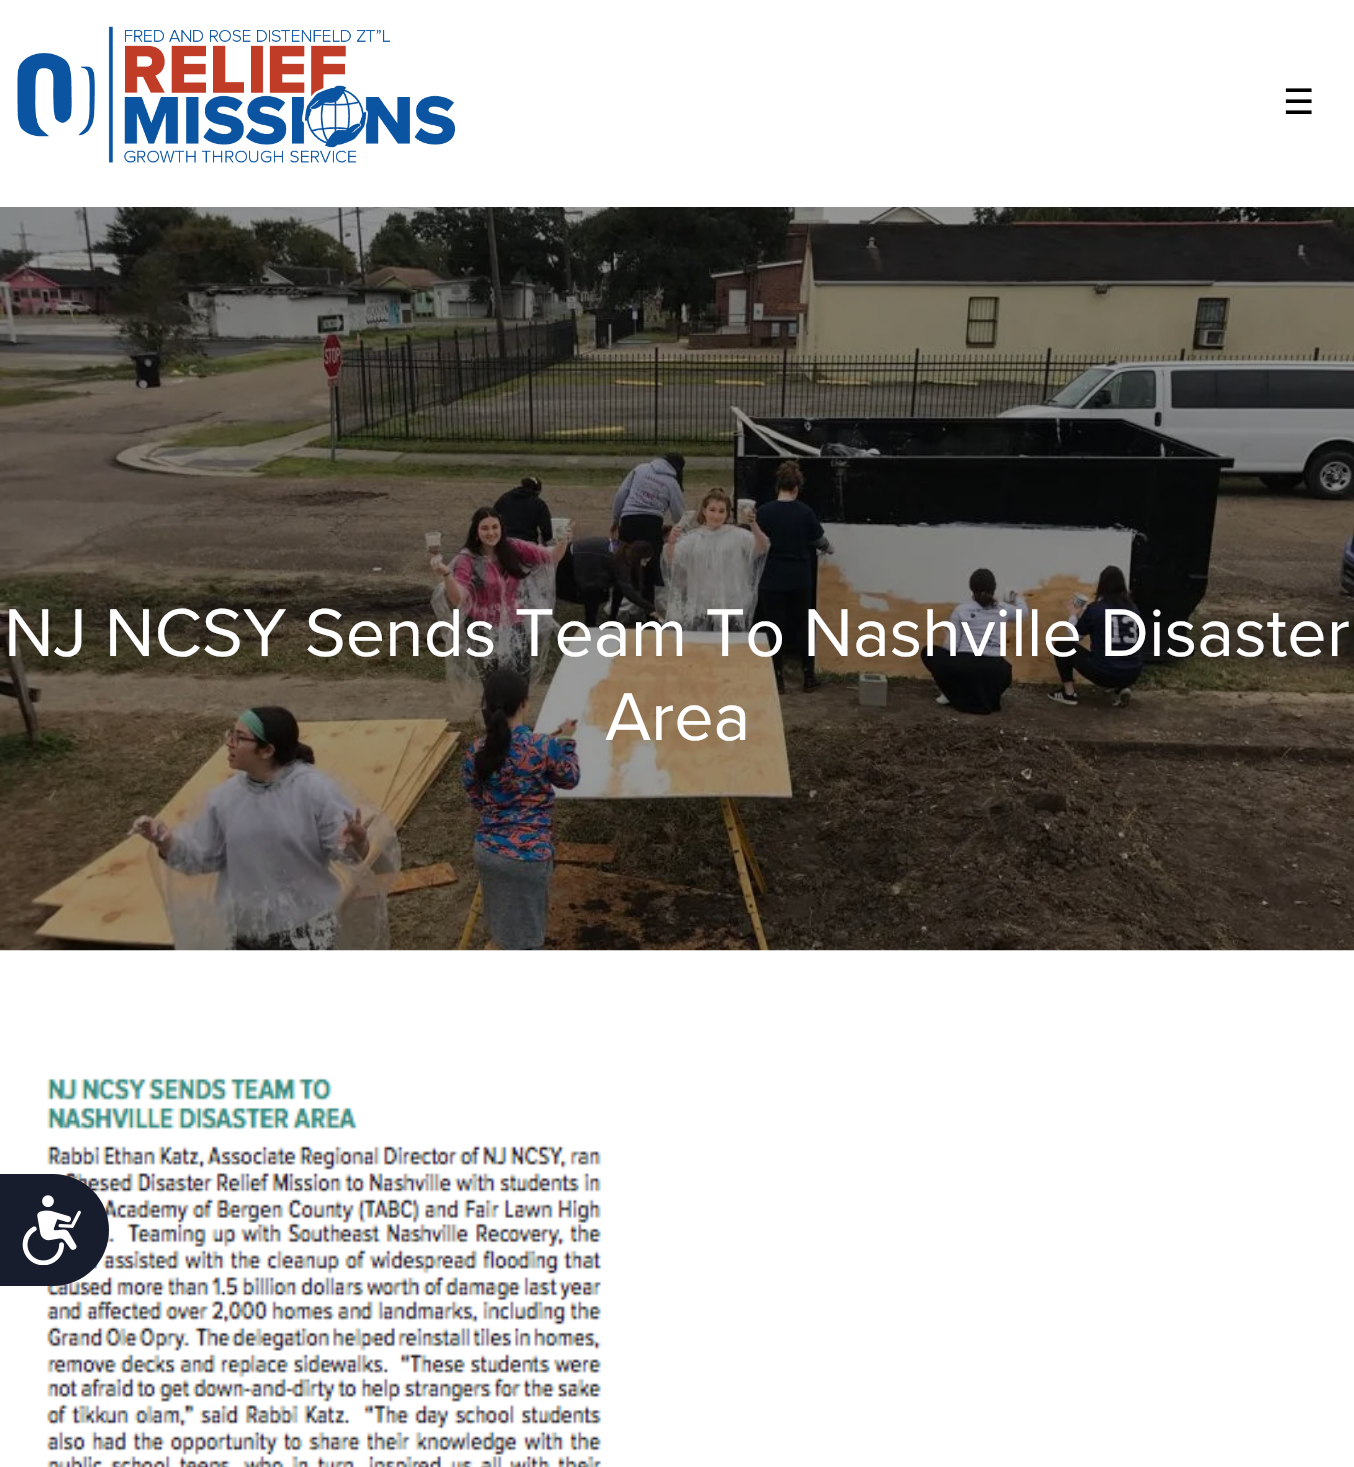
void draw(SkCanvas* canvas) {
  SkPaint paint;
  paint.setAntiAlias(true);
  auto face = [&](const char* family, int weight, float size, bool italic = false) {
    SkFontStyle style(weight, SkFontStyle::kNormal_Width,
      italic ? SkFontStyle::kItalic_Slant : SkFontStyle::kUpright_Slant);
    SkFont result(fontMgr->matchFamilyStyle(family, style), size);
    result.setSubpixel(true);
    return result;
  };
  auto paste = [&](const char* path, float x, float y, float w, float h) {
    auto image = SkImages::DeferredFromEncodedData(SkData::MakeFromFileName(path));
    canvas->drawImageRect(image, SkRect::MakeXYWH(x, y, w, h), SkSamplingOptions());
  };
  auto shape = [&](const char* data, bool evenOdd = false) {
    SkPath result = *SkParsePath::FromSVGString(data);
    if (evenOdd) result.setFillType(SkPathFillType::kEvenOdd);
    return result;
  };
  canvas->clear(0xffffffff);
  paste("img/1.png", 17, 26, 438, 137);
  paste("img/2.png", 0, 207, 1354, 744);
  paste("img/3.png", 45, 1077, 558, 390);
  paint.setColor(0xff171d2d);
  canvas->drawPath(shape("M0 1174H53C84 1174 109 1199 109 1230C109 1261 84 1286 53 1286H0Z"), paint);
  paste("img/4.png", 22, 1195, 59, 70);
  auto f0 = face("DejaVu Sans", 400, 35);
  paint.setColor(0xff000000);
  canvas->drawString("☰", 1283, 114, f0, paint);
  auto f1 = face("Proxima Nova", 400, 70);
  paint.setColor(0xffffffff);
  canvas->drawString("NJ NCSY Sends Team To Nashville Disaster", 4, 656, f1, paint);
  canvas->drawString("Area", 605, 740, f1, paint);
}
